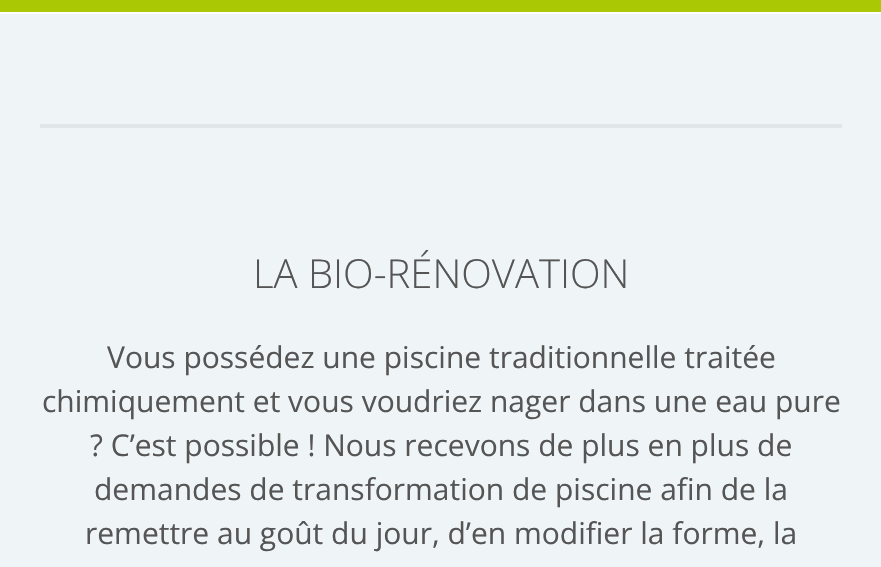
void draw(SkCanvas* canvas) {
  SkPaint paint;
  paint.setAntiAlias(true);
  auto face = [&](const char* family, int weight, float size, bool italic = false) {
    SkFontStyle style(weight, SkFontStyle::kNormal_Width,
      italic ? SkFontStyle::kItalic_Slant : SkFontStyle::kUpright_Slant);
    SkFont result(fontMgr->matchFamilyStyle(family, style), size);
    result.setSubpixel(true);
    return result;
  };
  canvas->clear(0xffffffff);
  {
    const struct { float x, y, w, h; SkColor color; } items[] = {
      {0, 0, 881, 12, 0xffabc805},
      {0, 14, 881, 553, 0xffeff5f6},
      {40, 124, 802, 4, 0xffe1e7e8},
    };
    for (auto [x, y, w, h, color] : items) {
      paint.setColor(color);
      canvas->drawRect(SkRect::MakeXYWH(x, y, w, h), paint);
    }
  }
  auto f0 = face("Open Sans", 300, 40);
  paint.setColor(0xff555555);
  canvas->drawString("LA BIO-RÉNOVATION", 253, 288, f0, paint);
  auto f1 = face("Open Sans", 400, 30);
  {
    const struct { const char* s; float x, y; } items[] = {
      {"Vous possédez une piscine traditionnelle traitée", 107, 368},
      {"chimiquement et vous voudriez nager dans une eau pure", 42, 412},
      {"? C’est possible ! Nous recevons de plus en plus de", 90, 456},
      {"demandes de transformation de piscine afin de la", 94, 500},
      {"remettre au goût du jour, d’en modifier la forme, la", 85, 544},
    };
    for (auto [s, x, y] : items) {
      canvas->drawString(s, x, y, f1, paint);
    }
  }
}
